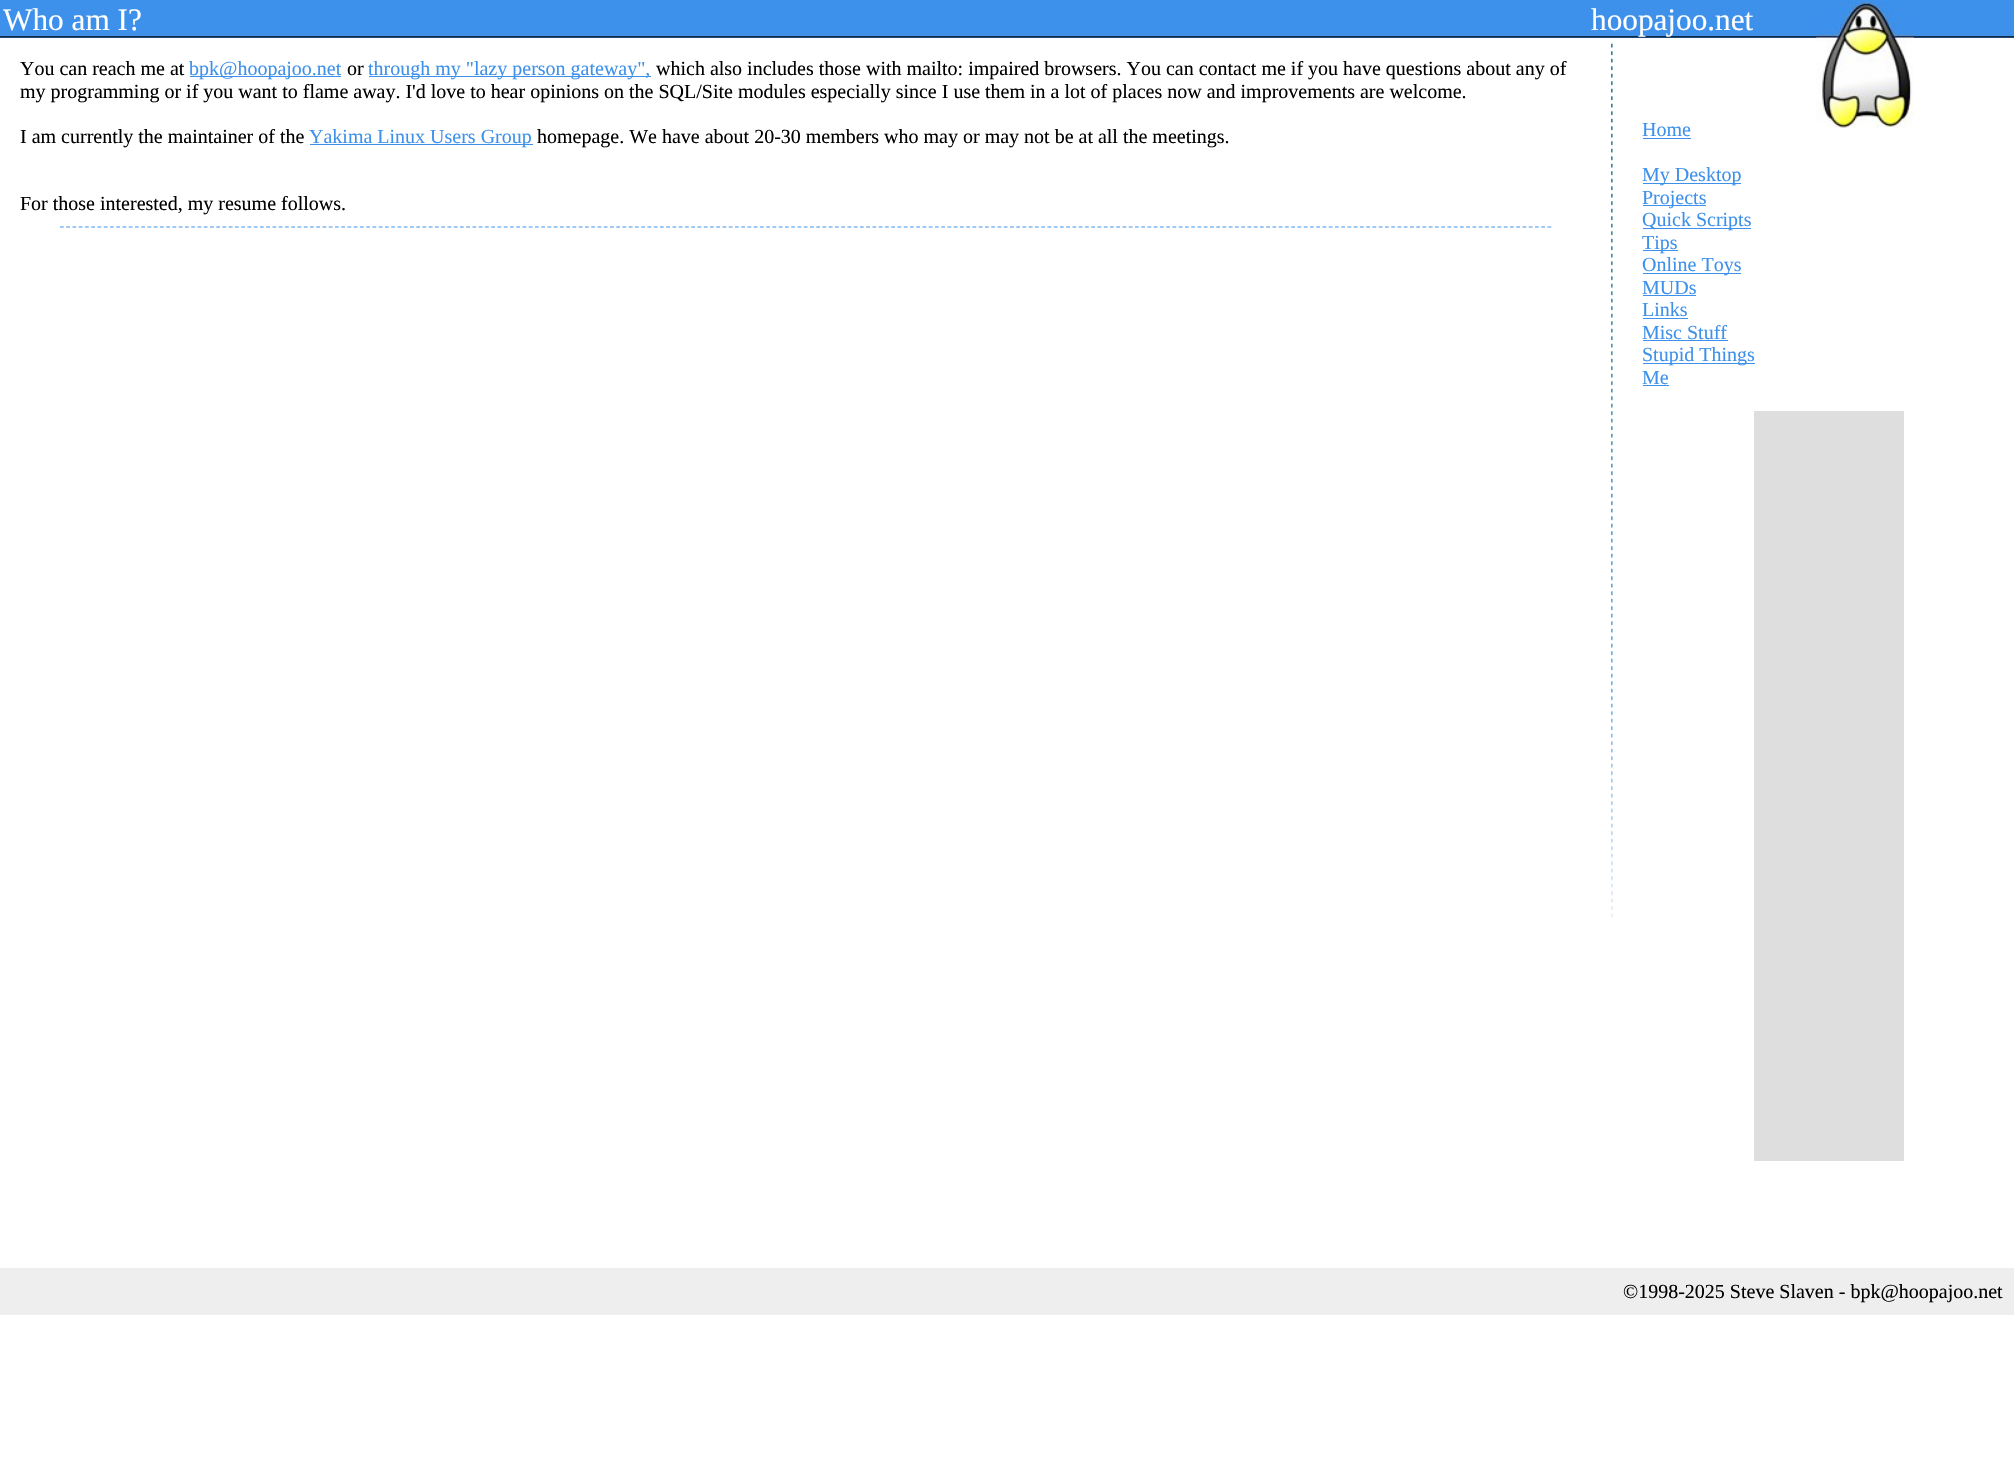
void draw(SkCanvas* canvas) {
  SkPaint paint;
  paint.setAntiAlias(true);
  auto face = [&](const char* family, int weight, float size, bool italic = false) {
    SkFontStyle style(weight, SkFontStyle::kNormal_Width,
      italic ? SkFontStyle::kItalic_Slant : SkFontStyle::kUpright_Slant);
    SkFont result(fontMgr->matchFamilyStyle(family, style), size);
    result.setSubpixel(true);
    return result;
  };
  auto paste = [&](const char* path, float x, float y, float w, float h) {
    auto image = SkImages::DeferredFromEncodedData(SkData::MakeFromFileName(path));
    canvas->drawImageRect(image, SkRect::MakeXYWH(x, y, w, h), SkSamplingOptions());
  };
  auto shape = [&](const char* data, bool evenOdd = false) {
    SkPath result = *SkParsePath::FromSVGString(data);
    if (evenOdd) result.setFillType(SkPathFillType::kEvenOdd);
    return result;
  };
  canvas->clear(0xffffffff);
  paint.setColor(0xff3e91eb);
  canvas->drawRect(SkRect::MakeXYWH(0, 0, 2014, 38), paint);
  paste("img/1.png", 0, 36, 2014, 2);
  paste("img/2.png", 1816, 2, 98, 126);
  {
    const struct { float x, y, w, h; SkColor color; } items[] = {
      {190, 76, 151, 1, 0xff3e91eb},
      {369, 76, 282, 1, 0xff3e91eb},
      {310, 144, 223, 1, 0xff3e91eb},
    };
    for (auto [x, y, w, h, color] : items) {
      paint.setColor(color);
      canvas->drawRect(SkRect::MakeXYWH(x, y, w, h), paint);
    }
  }
  paint.setStroke(true);
  paint.setStrokeWidth(1.2f);
  paint.setPathEffect(SkDashPathEffect::Make({{3.75f, 2.5f}}, 0));
  canvas->drawPath(shape("M60 227H1552.5"), paint);
  paint.setPathEffect(nullptr);
  paste("img/3.png", 1611, 43, 2, 875);
  paint.setStroke(false);
  {
    const struct { float x, y, w, h; SkColor color; } items[] = {
      {1643, 138, 48, 1, 0xff3e91eb},
      {1643, 183, 98, 1, 0xff3e91eb},
      {1643, 205, 63, 1, 0xff3e91eb},
      {1643, 228, 108, 1, 0xff3e91eb},
      {1643, 250, 35, 1, 0xff3e91eb},
      {1643, 273, 98, 1, 0xff3e91eb},
      {1643, 295, 53, 1, 0xff3e91eb},
      {1643, 318, 45, 1, 0xff3e91eb},
      {1643, 340, 85, 1, 0xff3e91eb},
      {1643, 363, 112, 1, 0xff3e91eb},
      {1643, 385, 26, 1, 0xff3e91eb},
      {1754, 411, 150, 750, 0xffdedede},
      {0, 1268, 2014, 47, 0xffeeeeee},
    };
    for (auto [x, y, w, h, color] : items) {
      paint.setColor(color);
      canvas->drawRect(SkRect::MakeXYWH(x, y, w, h), paint);
    }
  }
  auto f0 = face("Liberation Serif", 400, 31.25f);
  paint.setColor(0xffffffff);
  canvas->drawString("Who am I?", 3, 30, f0, paint);
  canvas->drawString("hoopajoo.net", 1591, 30, f0, paint);
  auto f1 = face("Liberation Serif", 400, 20);
  paint.setColor(0xff000000);
  canvas->drawString("You can reach me at", 20, 75, f1, paint);
  paint.setColor(0xff3e91eb);
  canvas->drawString("bpk@hoopajoo.net", 189, 75, f1, paint);
  paint.setColor(0xff000000);
  canvas->drawString("or", 347, 75, f1, paint);
  paint.setColor(0xff3e91eb);
  canvas->drawString("through my \"lazy person gateway\",", 368, 75, f1, paint);
  paint.setColor(0xff000000);
  {
    const struct { const char* s; float x, y; } items[] = {
      {"which also includes those with mailto: impaired browsers. You can contact me if you have questions about any of", 656, 75},
      {"my programming or if you want to flame away. I'd love to hear opinions on the SQL/Site modules especially since I use them in a lot of places now and improvements are welcome.", 20, 98},
      {"I am currently the maintainer of the", 20, 143},
    };
    for (auto [s, x, y] : items) {
      canvas->drawString(s, x, y, f1, paint);
    }
  }
  paint.setColor(0xff3e91eb);
  canvas->drawString("Yakima Linux Users Group", 309, 143, f1, paint);
  paint.setColor(0xff000000);
  canvas->drawString("homepage. We have about 20-30 members who may or may not be at all the meetings.", 537, 143, f1, paint);
  canvas->drawString("For those interested, my resume follows.", 20, 210, f1, paint);
  paint.setColor(0xff3e91eb);
  {
    const struct { const char* s; float x, y; } items[] = {
      {"Home", 1642, 136},
      {"My Desktop", 1642, 181},
      {"Projects", 1642, 204},
      {"Quick Scripts", 1642, 226},
      {"Tips", 1642, 249},
      {"Online Toys", 1642, 271},
      {"MUDs", 1642, 294},
      {"Links", 1642, 316},
      {"Misc Stuff", 1642, 339},
      {"Stupid Things", 1642, 361},
      {"Me", 1642, 384},
    };
    for (auto [s, x, y] : items) {
      canvas->drawString(s, x, y, f1, paint);
    }
  }
  paint.setColor(0xff000000);
  canvas->drawString("©1998-2025 Steve Slaven - bpk@hoopajoo.net", 1623, 1298, f1, paint);
}
